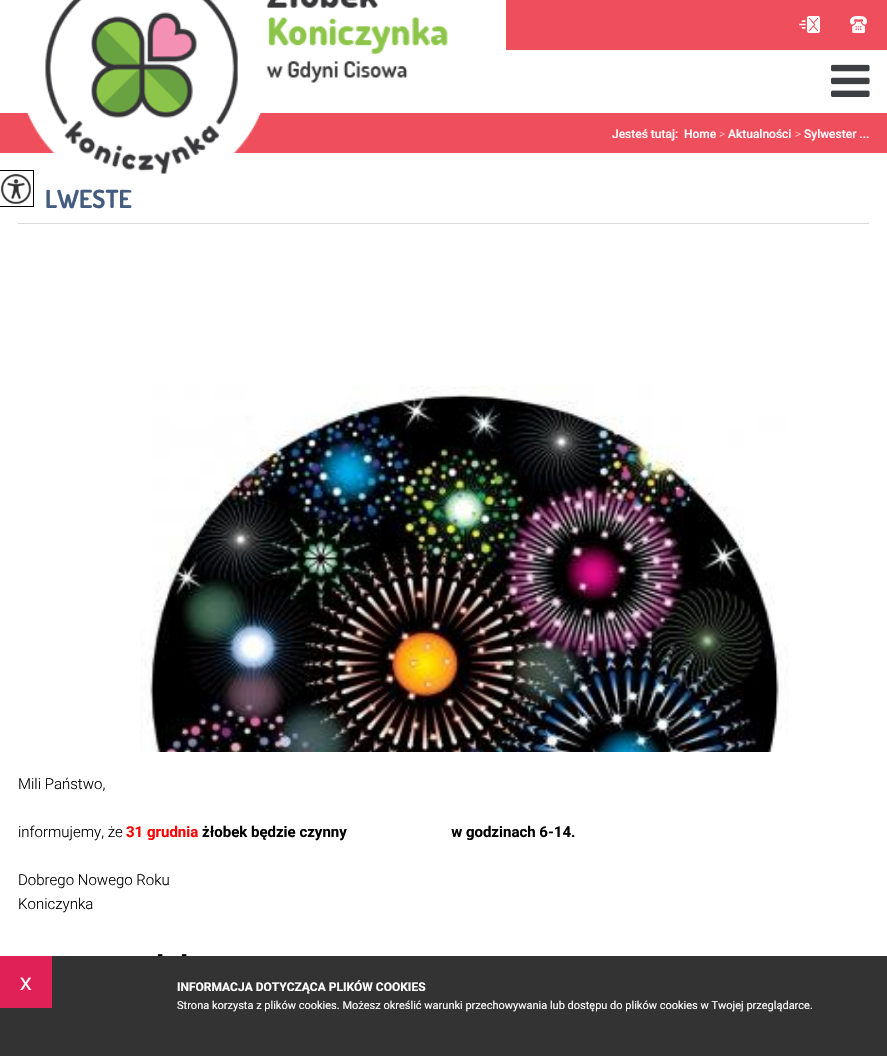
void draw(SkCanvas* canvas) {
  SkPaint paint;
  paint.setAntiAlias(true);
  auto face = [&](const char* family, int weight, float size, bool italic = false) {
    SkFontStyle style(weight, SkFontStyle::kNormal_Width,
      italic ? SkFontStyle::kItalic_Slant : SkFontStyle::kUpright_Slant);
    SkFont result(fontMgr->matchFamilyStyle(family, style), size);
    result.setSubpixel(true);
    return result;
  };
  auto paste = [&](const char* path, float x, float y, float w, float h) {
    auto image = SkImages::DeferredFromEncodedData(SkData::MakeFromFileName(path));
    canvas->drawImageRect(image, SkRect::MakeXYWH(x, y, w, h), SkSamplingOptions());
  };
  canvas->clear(0xffffffff);
  paint.setColor(0xffef4f5d);
  canvas->drawRect(SkRect::MakeXYWH(506, 0, 381, 50), paint);
  paste("img/2.png", 799, 16, 21, 17);
  paste("img/3.png", 850, 16, 17, 17);
  paste("img/4.png", 831, 64, 39, 33);
  canvas->drawRect(SkRect::MakeXYWH(0, 113, 887, 40), paint);
  paint.setColor(0xffd9d9d9);
  canvas->drawRect(SkRect::MakeXYWH(18, 223, 851, 1), paint);
  paste("img/6.png", 140, 385, 649, 367);
  paint.setColor(0xcc000000);
  canvas->drawRect(SkRect::MakeXYWH(0, 956, 887, 100), paint);
  paint.setColor(0xffdf2157);
  canvas->drawRect(SkRect::MakeXYWH(0, 956, 52, 52), paint);
  auto f0 = face("Roboto", 500, 12);
  paint.setColor(0xffffffff);
  canvas->drawString("Jesteś tutaj:", 612, 138, f0, paint);
  canvas->drawString("Home", 684, 138, f0, paint);
  auto f1 = face("Roboto", 100, 12);
  canvas->drawString(">", 719, 138, f1, paint);
  canvas->drawString("Aktualności", 728, 138, f0, paint);
  canvas->drawString(">", 795, 138, f1, paint);
  canvas->drawString("Sylwester ...", 804, 138, f0, paint);
  auto f2 = face("Dosis", 700, 25);
  paint.setColor(0xff455c81);
  canvas->drawString("LWESTE", 45, 208, f2, paint);
  paste("img/1.png", 26, 0, 422, 191);
  paint.setStroke(true);
  paint.setStrokeWidth(1);
  paint.setColor(0xff000000);
  canvas->drawRect(SkRect::MakeXYWH(-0.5f, 170.5f, 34, 36), paint);
  paste("img/5.png", 0, 173, 31, 31);
  auto f3 = face("Roboto", 300, 15);
  paint.setStroke(false);
  canvas->drawString("Mili Państwo,", 18, 789, f3, paint);
  canvas->drawString("informujemy, że", 18, 837, f3, paint);
  auto f4 = face("Roboto", 700, 15);
  paint.setColor(0xffff0000);
  canvas->drawString("31 grudnia", 126, 837, f4, paint);
  paint.setColor(0xff000000);
  canvas->drawString("żłobek będzie czynny                            w godzinach 6-14.", 202, 837, f4, paint);
  canvas->drawString("Dobrego Nowego Roku", 18, 885, f3, paint);
  canvas->drawString("Koniczynka", 18, 909, f3, paint);
  auto f5 = face("Roboto", 700, 16);
  canvas->drawString("-", 157, 960, f5, paint);
  canvas->drawString("-", 181, 960, f5, paint);
  auto f6 = face("Liberation Sans", 400, 23);
  paint.setColor(0xffffffff);
  canvas->drawString("x", 20, 990, f6, paint);
  auto f7 = face("Roboto", 700, 12);
  canvas->drawString("INFORMACJA DOTYCZĄCA PLIKÓW COOKIES", 177, 991, f7, paint);
  auto f8 = face("Roboto", 400, 11);
  canvas->drawString("Strona korzysta z plików cookies. Możesz określić warunki przechowywania lub dostępu do plików cookies w Twojej przeglądarce.", 177, 1009, f8, paint);
}
